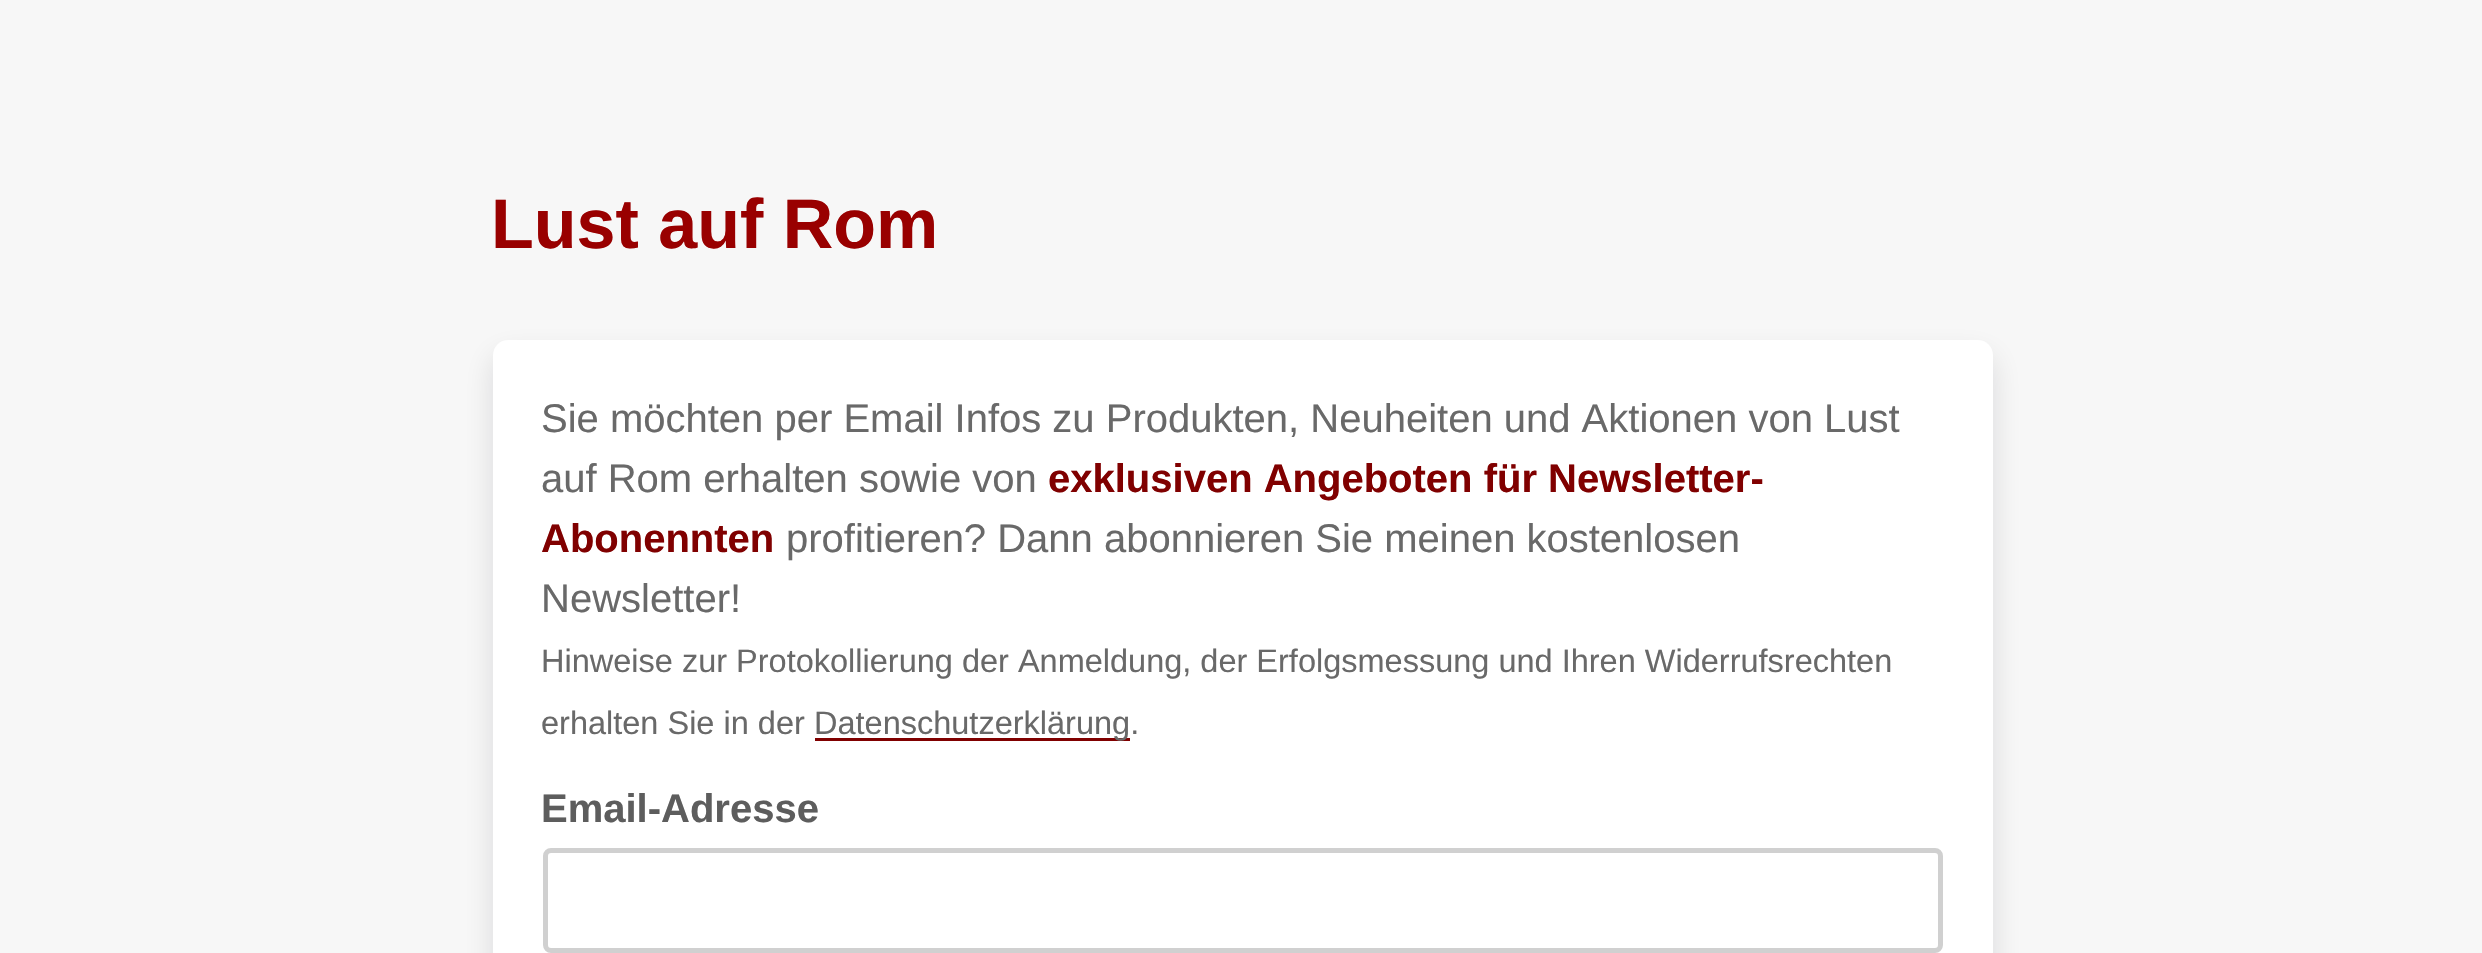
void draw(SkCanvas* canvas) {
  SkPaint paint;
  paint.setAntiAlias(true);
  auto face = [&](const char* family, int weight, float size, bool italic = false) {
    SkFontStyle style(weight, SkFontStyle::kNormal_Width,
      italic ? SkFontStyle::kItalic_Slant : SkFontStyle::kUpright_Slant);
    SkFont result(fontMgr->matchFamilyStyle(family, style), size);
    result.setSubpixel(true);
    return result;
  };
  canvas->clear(0xfff7f7f7);
  paint.setColor(0x1f0d1216);
  paint.setMaskFilter(SkMaskFilter::MakeBlur(kNormal_SkBlurStyle, 15));
  canvas->drawRoundRect(SkRect::MakeXYWH(493, 355, 1500, 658), 15, 15, paint);
  paint.setMaskFilter(nullptr);
  paint.setColor(0xffffffff);
  canvas->drawRoundRect(SkRect::MakeXYWH(493, 340, 1500, 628), 15, 15, paint);
  paint.setColor(0xff800000);
  canvas->drawRect(SkRect::MakeXYWH(815, 738, 315, 3), paint);
  paint.setStroke(true);
  paint.setStrokeWidth(5);
  paint.setColor(0xffd0d0d0);
  canvas->drawRoundRect(SkRect::MakeXYWH(545.5f, 850.5f, 1395, 100), 5.5f, 5.5f, paint);
  auto f0 = face("Liberation Sans", 700, 70);
  paint.setStroke(false);
  paint.setColor(0xff990000);
  canvas->drawString("Lust auf Rom", 491, 248, f0, paint);
  auto f1 = face("Liberation Sans", 400, 40);
  paint.setColor(0xff696969);
  canvas->drawString("Sie möchten per Email Infos zu Produkten, Neuheiten und Aktionen von Lust", 541, 432, f1, paint);
  canvas->drawString("auf Rom erhalten sowie von", 541, 492, f1, paint);
  auto f2 = face("Liberation Sans", 700, 40);
  paint.setColor(0xff800000);
  canvas->drawString("exklusiven Angeboten für Newsletter-", 1048, 492, f2, paint);
  canvas->drawString("Abonennten", 541, 552, f2, paint);
  paint.setColor(0xff696969);
  canvas->drawString("profitieren? Dann abonnieren Sie meinen kostenlosen", 786, 552, f1, paint);
  canvas->drawString("Newsletter!", 541, 612, f1, paint);
  auto f3 = face("Liberation Sans", 400, 32.5f);
  {
    const struct { const char* s; float x, y; } items[] = {
      {"Hinweise zur Protokollierung der Anmeldung, der Erfolgsmessung und Ihren Widerrufsrechten", 541, 672},
      {"erhalten Sie in der", 541, 734},
      {"Datenschutzerklärung.", 814, 734},
    };
    for (auto [s, x, y] : items) {
      canvas->drawString(s, x, y, f3, paint);
    }
  }
  paint.setColor(0xff5d5d5d);
  canvas->drawString("Email-Adresse", 541, 822, f2, paint);
}
